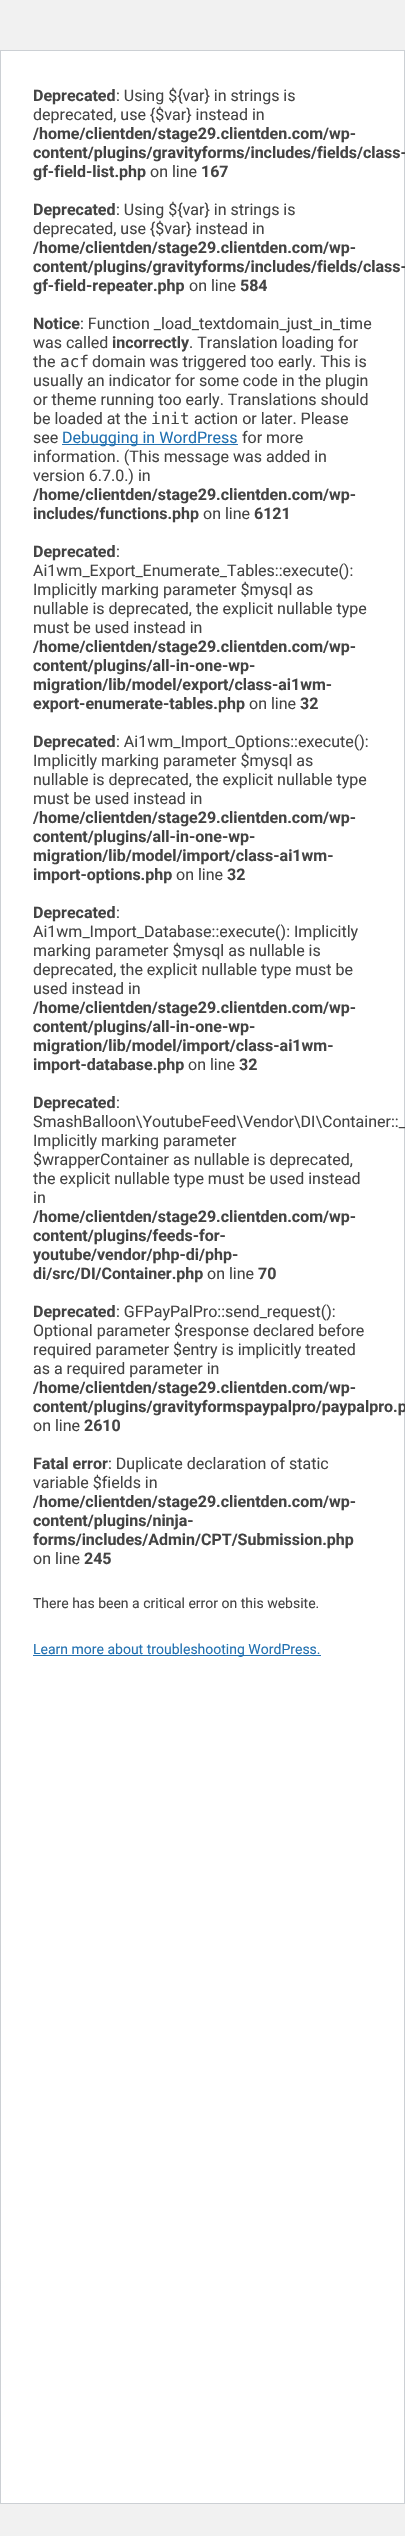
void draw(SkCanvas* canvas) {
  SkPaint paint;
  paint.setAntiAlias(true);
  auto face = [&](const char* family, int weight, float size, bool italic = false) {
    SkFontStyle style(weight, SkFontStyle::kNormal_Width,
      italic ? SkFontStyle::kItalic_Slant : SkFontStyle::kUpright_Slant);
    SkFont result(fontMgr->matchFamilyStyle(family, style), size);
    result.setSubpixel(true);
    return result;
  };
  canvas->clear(0xfff1f1f1);
  paint.setColor(0xffffffff);
  canvas->drawRect(SkRect::MakeXYWH(0.5f, 50.5f, 404, 2453), paint);
  paint.setStroke(true);
  paint.setStrokeWidth(1);
  paint.setColor(0xffccd0d4);
  canvas->drawRect(SkRect::MakeXYWH(0.5f, 50.5f, 404, 2453), paint);
  paint.setStroke(false);
  paint.setColor(0xff2271b1);
  canvas->drawRect(SkRect::MakeXYWH(62, 444, 176, 1), paint);
  canvas->drawRect(SkRect::MakeXYWH(33, 1655, 288, 1), paint);
  auto f0 = face("Roboto", 700, 16);
  paint.setColor(0xff444444);
  canvas->drawString("Deprecated", 33, 101, f0, paint);
  auto f1 = face("Roboto", 400, 16);
  canvas->drawString(": Using ${var} in strings is", 116, 101, f1, paint);
  canvas->drawString("deprecated, use {$var} instead in", 33, 120, f1, paint);
  {
    const struct { const char* s; float x, y; } items[] = {
      {"/home/clientden/stage29.clientden.com/wp-", 33, 139},
      {"content/plugins/gravityforms/includes/fields/class-", 33, 158},
      {"gf-field-list.php", 33, 177},
    };
    for (auto [s, x, y] : items) {
      canvas->drawString(s, x, y, f0, paint);
    }
  }
  canvas->drawString("on line", 150, 177, f1, paint);
  canvas->drawString("167", 201, 177, f0, paint);
  canvas->drawString("Deprecated", 33, 215, f0, paint);
  canvas->drawString(": Using ${var} in strings is", 116, 215, f1, paint);
  canvas->drawString("deprecated, use {$var} instead in", 33, 234, f1, paint);
  {
    const struct { const char* s; float x, y; } items[] = {
      {"/home/clientden/stage29.clientden.com/wp-", 33, 253},
      {"content/plugins/gravityforms/includes/fields/class-", 33, 272},
      {"gf-field-repeater.php", 33, 291},
    };
    for (auto [s, x, y] : items) {
      canvas->drawString(s, x, y, f0, paint);
    }
  }
  canvas->drawString("on line", 189, 291, f1, paint);
  canvas->drawString("584", 240, 291, f0, paint);
  canvas->drawString("Notice", 33, 329, f0, paint);
  canvas->drawString(": Function _load_textdomain_just_in_time", 80, 329, f1, paint);
  canvas->drawString("was called", 33, 348, f1, paint);
  canvas->drawString("incorrectly", 112, 348, f0, paint);
  canvas->drawString(". Translation loading for", 189, 348, f1, paint);
  canvas->drawString("the", 33, 367, f1, paint);
  auto f2 = face("DejaVu Sans Mono", 400, 16);
  canvas->drawString("acf", 60, 367, f2, paint);
  {
    const struct { const char* s; float x, y; } items[] = {
      {"domain was triggered too early. This is", 92, 367},
      {"usually an indicator for some code in the plugin", 33, 386},
      {"or theme running too early. Translations should", 33, 405},
      {"be loaded at the", 33, 424},
    };
    for (auto [s, x, y] : items) {
      canvas->drawString(s, x, y, f1, paint);
    }
  }
  canvas->drawString("init", 151, 424, f2, paint);
  canvas->drawString("action or later. Please", 194, 424, f1, paint);
  canvas->drawString("see", 33, 443, f1, paint);
  paint.setColor(0xff2271b1);
  canvas->drawString("Debugging in WordPress", 62, 443, f1, paint);
  paint.setColor(0xff444444);
  {
    const struct { const char* s; float x, y; } items[] = {
      {"for more", 242, 443},
      {"information. (This message was added in", 33, 462},
      {"version 6.7.0.) in", 33, 481},
    };
    for (auto [s, x, y] : items) {
      canvas->drawString(s, x, y, f1, paint);
    }
  }
  canvas->drawString("/home/clientden/stage29.clientden.com/wp-", 33, 500, f0, paint);
  canvas->drawString("includes/functions.php", 33, 519, f0, paint);
  canvas->drawString("on line", 203, 519, f1, paint);
  canvas->drawString("6121", 254, 519, f0, paint);
  canvas->drawString("Deprecated", 33, 557, f0, paint);
  {
    const struct { const char* s; float x, y; } items[] = {
      {":", 116, 557},
      {"Ai1wm_Export_Enumerate_Tables::execute():", 33, 576},
      {"Implicitly marking parameter $mysql as", 33, 595},
      {"nullable is deprecated, the explicit nullable type", 33, 614},
      {"must be used instead in", 33, 633},
    };
    for (auto [s, x, y] : items) {
      canvas->drawString(s, x, y, f1, paint);
    }
  }
  {
    const struct { const char* s; float x, y; } items[] = {
      {"/home/clientden/stage29.clientden.com/wp-", 33, 652},
      {"content/plugins/all-in-one-wp-", 33, 671},
      {"migration/lib/model/export/class-ai1wm-", 33, 690},
      {"export-enumerate-tables.php", 33, 709},
    };
    for (auto [s, x, y] : items) {
      canvas->drawString(s, x, y, f0, paint);
    }
  }
  canvas->drawString("on line", 249, 709, f1, paint);
  canvas->drawString("32", 300, 709, f0, paint);
  canvas->drawString("Deprecated", 33, 747, f0, paint);
  {
    const struct { const char* s; float x, y; } items[] = {
      {": Ai1wm_Import_Options::execute():", 116, 747},
      {"Implicitly marking parameter $mysql as", 33, 766},
      {"nullable is deprecated, the explicit nullable type", 33, 785},
      {"must be used instead in", 33, 804},
    };
    for (auto [s, x, y] : items) {
      canvas->drawString(s, x, y, f1, paint);
    }
  }
  {
    const struct { const char* s; float x, y; } items[] = {
      {"/home/clientden/stage29.clientden.com/wp-", 33, 823},
      {"content/plugins/all-in-one-wp-", 33, 842},
      {"migration/lib/model/import/class-ai1wm-", 33, 861},
      {"import-options.php", 33, 880},
    };
    for (auto [s, x, y] : items) {
      canvas->drawString(s, x, y, f0, paint);
    }
  }
  canvas->drawString("on line", 176, 880, f1, paint);
  canvas->drawString("32", 227, 880, f0, paint);
  canvas->drawString("Deprecated", 33, 918, f0, paint);
  {
    const struct { const char* s; float x, y; } items[] = {
      {":", 116, 918},
      {"Ai1wm_Import_Database::execute(): Implicitly", 33, 937},
      {"marking parameter $mysql as nullable is", 33, 956},
      {"deprecated, the explicit nullable type must be", 33, 975},
      {"used instead in", 33, 994},
    };
    for (auto [s, x, y] : items) {
      canvas->drawString(s, x, y, f1, paint);
    }
  }
  {
    const struct { const char* s; float x, y; } items[] = {
      {"/home/clientden/stage29.clientden.com/wp-", 33, 1013},
      {"content/plugins/all-in-one-wp-", 33, 1032},
      {"migration/lib/model/import/class-ai1wm-", 33, 1051},
      {"import-database.php", 33, 1070},
    };
    for (auto [s, x, y] : items) {
      canvas->drawString(s, x, y, f0, paint);
    }
  }
  canvas->drawString("on line", 188, 1070, f1, paint);
  canvas->drawString("32", 239, 1070, f0, paint);
  canvas->drawString("Deprecated", 33, 1108, f0, paint);
  {
    const struct { const char* s; float x, y; } items[] = {
      {":", 116, 1108},
      {"SmashBalloon\\YoutubeFeed\\Vendor\\DI\\Container::_", 33, 1127},
      {"Implicitly marking parameter", 33, 1146},
      {"$wrapperContainer as nullable is deprecated,", 33, 1165},
      {"the explicit nullable type must be used instead", 33, 1184},
      {"in", 33, 1203},
    };
    for (auto [s, x, y] : items) {
      canvas->drawString(s, x, y, f1, paint);
    }
  }
  {
    const struct { const char* s; float x, y; } items[] = {
      {"/home/clientden/stage29.clientden.com/wp-", 33, 1222},
      {"content/plugins/feeds-for-", 33, 1241},
      {"youtube/vendor/php-di/php-", 33, 1260},
      {"di/src/DI/Container.php", 33, 1279},
    };
    for (auto [s, x, y] : items) {
      canvas->drawString(s, x, y, f0, paint);
    }
  }
  canvas->drawString("on line", 207, 1279, f1, paint);
  canvas->drawString("70", 258, 1279, f0, paint);
  canvas->drawString("Deprecated", 33, 1317, f0, paint);
  {
    const struct { const char* s; float x, y; } items[] = {
      {": GFPayPalPro::send_request():", 116, 1317},
      {"Optional parameter $response declared before", 33, 1336},
      {"required parameter $entry is implicitly treated", 33, 1355},
      {"as a required parameter in", 33, 1374},
    };
    for (auto [s, x, y] : items) {
      canvas->drawString(s, x, y, f1, paint);
    }
  }
  canvas->drawString("/home/clientden/stage29.clientden.com/wp-", 33, 1393, f0, paint);
  canvas->drawString("content/plugins/gravityformspaypalpro/paypalpro.p", 33, 1412, f0, paint);
  canvas->drawString("on line", 33, 1431, f1, paint);
  canvas->drawString("2610", 84, 1431, f0, paint);
  canvas->drawString("Fatal error", 33, 1469, f0, paint);
  canvas->drawString(": Duplicate declaration of static", 108, 1469, f1, paint);
  canvas->drawString("variable $fields in", 33, 1488, f1, paint);
  {
    const struct { const char* s; float x, y; } items[] = {
      {"/home/clientden/stage29.clientden.com/wp-", 33, 1507},
      {"content/plugins/ninja-", 33, 1526},
      {"forms/includes/Admin/CPT/Submission.php", 33, 1545},
    };
    for (auto [s, x, y] : items) {
      canvas->drawString(s, x, y, f0, paint);
    }
  }
  canvas->drawString("on line", 33, 1564, f1, paint);
  canvas->drawString("245", 84, 1564, f0, paint);
  auto f3 = face("Roboto", 400, 14);
  canvas->drawString("There has been a critical error on this website.", 33, 1608, f3, paint);
  paint.setColor(0xff2271b1);
  canvas->drawString("Learn more about troubleshooting WordPress.", 33, 1654, f3, paint);
}
